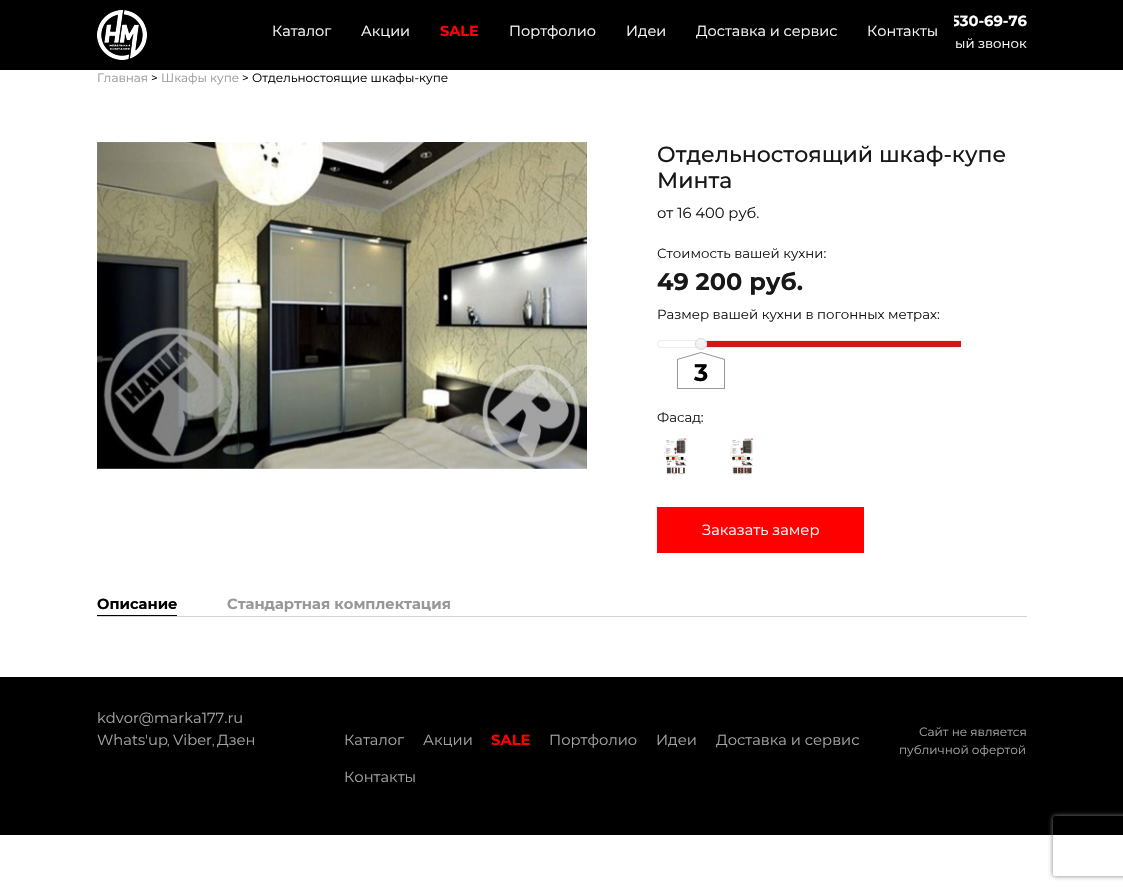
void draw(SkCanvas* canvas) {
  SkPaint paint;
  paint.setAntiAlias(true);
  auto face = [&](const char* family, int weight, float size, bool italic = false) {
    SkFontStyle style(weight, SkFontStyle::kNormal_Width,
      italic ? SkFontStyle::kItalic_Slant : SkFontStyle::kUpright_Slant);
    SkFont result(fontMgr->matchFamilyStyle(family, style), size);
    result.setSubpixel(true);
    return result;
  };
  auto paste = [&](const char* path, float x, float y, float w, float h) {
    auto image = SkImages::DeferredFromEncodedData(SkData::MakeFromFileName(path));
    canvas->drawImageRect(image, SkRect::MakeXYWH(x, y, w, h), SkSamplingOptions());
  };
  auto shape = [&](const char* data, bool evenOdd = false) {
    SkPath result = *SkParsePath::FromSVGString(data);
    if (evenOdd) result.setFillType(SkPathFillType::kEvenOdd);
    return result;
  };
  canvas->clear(0xffffffff);
  paint.setColor(0xff000000);
  canvas->drawRect(SkRect::MakeXYWH(0, 0, 1123, 70), paint);
  paste("img/1.png", 97, 10, 50, 50);
  paste("img/2.png", 97, 142, 490, 327);
  paint.setStroke(true);
  paint.setStrokeWidth(1);
  paint.setColor(0xffeeeeee);
  canvas->drawRoundRect(SkRect::MakeXYWH(657.5f, 340.5f, 304, 7), 3.5f, 3.5f, paint);
  paint.setStroke(false);
  paint.setColor(0xffd11717);
  canvas->drawRect(SkRect::MakeXYWH(701, 341, 260, 6), paint);
  paint.setColor(0xffeeeeee);
  canvas->drawCircle(701, 344, 6, paint);
  paste("img/3.png", 696, 338, 11, 9);
  paint.setStroke(true);
  paint.setColor(0xffd8dcdf);
  canvas->drawCircle(701, 344, 5.5f, paint);
  paste("img/4.png", 677, 352, 48, 37);
  paste("img/5.png", 664, 438, 25, 37);
  paste("img/6.png", 730, 438, 25, 37);
  paint.setStroke(false);
  {
    const struct { float x, y, w, h; SkColor color; } items[] = {
      {657, 507, 207, 46, 0xffff0000},
      {97, 616, 930, 1, 0xffd2d2d2},
      {97, 615, 80, 1, 0xff000000},
      {0, 677, 1123, 158, 0xff000000},
    };
    for (auto [x, y, w, h, color] : items) {
      paint.setColor(color);
      canvas->drawRect(SkRect::MakeXYWH(x, y, w, h), paint);
    }
  }
  canvas->save();
  canvas->clipPath(shape("M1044 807H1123V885H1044ZM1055 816H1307C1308 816 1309 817 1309 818V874C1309 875 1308 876 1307 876H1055C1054 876 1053 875 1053 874V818C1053 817 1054 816 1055 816Z", true), true);
  paint.setColor(0xff808080);
  paint.setMaskFilter(SkMaskFilter::MakeBlur(kNormal_SkBlurStyle, 2.5f));
  canvas->drawRoundRect(SkRect::MakeXYWH(1053, 816, 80, 60), 2, 2, paint);
  paint.setMaskFilter(nullptr);
  canvas->restore();
  auto f0 = face("Montserrat", 400, 14.5f);
  paint.setColor(0xffffffff);
  canvas->drawString("Каталог", 272, 36, f0, paint);
  canvas->drawString("Акции", 361, 36, f0, paint);
  auto f1 = face("Montserrat", 700, 14.5f);
  paint.setColor(0xffff0000);
  canvas->drawString("SALE", 440, 36, f1, paint);
  paint.setColor(0xffffffff);
  {
    const struct { const char* s; float x, y; } items[] = {
      {"Портфолио", 509, 36},
      {"Идеи", 626, 36},
      {"Доставка и сервис", 696, 36},
      {"Контакты", 867, 36},
    };
    for (auto [s, x, y] : items) {
      canvas->drawString(s, x, y, f0, paint);
    }
  }
  auto f2 = face("Montserrat", 700, 14.7f);
  canvas->drawString("530-69-76", 951, 26, f2, paint);
  paint.setColor(0xff000000);
  canvas->drawRect(SkRect::MakeXYWH(951, 15, 3, 12), paint);
  auto f3 = face("Montserrat", 400, 13.25f);
  paint.setColor(0xffffffff);
  canvas->drawString("ый звонок", 955, 48, f3, paint);
  auto f4 = face("Montserrat", 400, 12);
  paint.setColor(0xff989898);
  canvas->drawString("Главная", 97, 82, f4, paint);
  paint.setColor(0xff000000);
  canvas->drawString(">", 151, 82, f4, paint);
  paint.setColor(0xff989898);
  canvas->drawString("Шкафы купе", 161, 82, f4, paint);
  paint.setColor(0xff000000);
  canvas->drawString("> Отдельностоящие шкафы-купе", 242, 82, f4, paint);
  auto f5 = face("Montserrat", 500, 22);
  paint.setColor(0xff181818);
  canvas->drawString("Отдельностоящий шкаф-купе", 657, 162, f5, paint);
  canvas->drawString("Минта", 657, 188, f5, paint);
  auto f6 = face("Montserrat", 400, 14.7f);
  canvas->drawString("от 16 400 руб.", 657, 218, f6, paint);
  auto f7 = face("Montserrat", 400, 13.3f);
  canvas->drawString("Стоимость вашей кухни:", 657, 258, f7, paint);
  auto f8 = face("Montserrat", 700, 24);
  canvas->drawString("49 200 руб.", 657, 290, f8, paint);
  canvas->drawString("Размер вашей кухни в погонных метрах:", 657, 319, f7, paint);
  paint.setColor(0xff000000);
  canvas->drawString("3", 694, 381, f8, paint);
  paint.setColor(0xff181818);
  canvas->drawString("Фасад:", 657, 422, f7, paint);
  paint.setColor(0xffffffff);
  canvas->drawString("Заказать замер", 702, 535, f6, paint);
  paint.setColor(0xff000000);
  canvas->drawString("Описание", 97, 609, f2, paint);
  paint.setColor(0xff989898);
  canvas->drawString("Стандартная комплектация", 227, 609, f2, paint);
  paint.setColor(0xffa4a4a4);
  canvas->drawString("kdvor@marka177.ru", 97, 723, f6, paint);
  canvas->drawString("Whats'up", 97, 745, f6, paint);
  canvas->drawString(",", 167, 745, f4, paint);
  canvas->drawString("Viber", 173, 745, f6, paint);
  canvas->drawString(",", 212, 745, f4, paint);
  {
    const struct { const char* s; float x, y; } items[] = {
      {"Дзен", 217, 745},
      {"Каталог", 344, 745},
      {"Акции", 423, 745},
    };
    for (auto [s, x, y] : items) {
      canvas->drawString(s, x, y, f6, paint);
    }
  }
  paint.setColor(0xffff0000);
  canvas->drawString("SALE", 491, 745, f2, paint);
  paint.setColor(0xffa4a4a4);
  {
    const struct { const char* s; float x, y; } items[] = {
      {"Портфолио", 549, 745},
      {"Идеи", 656, 745},
      {"Доставка и сервис", 716, 745},
      {"Контакты", 344, 782},
    };
    for (auto [s, x, y] : items) {
      canvas->drawString(s, x, y, f6, paint);
    }
  }
  canvas->drawString("Сайт не является", 919, 736, f4, paint);
  canvas->drawString("публичной офертой", 899, 754, f4, paint);
}
